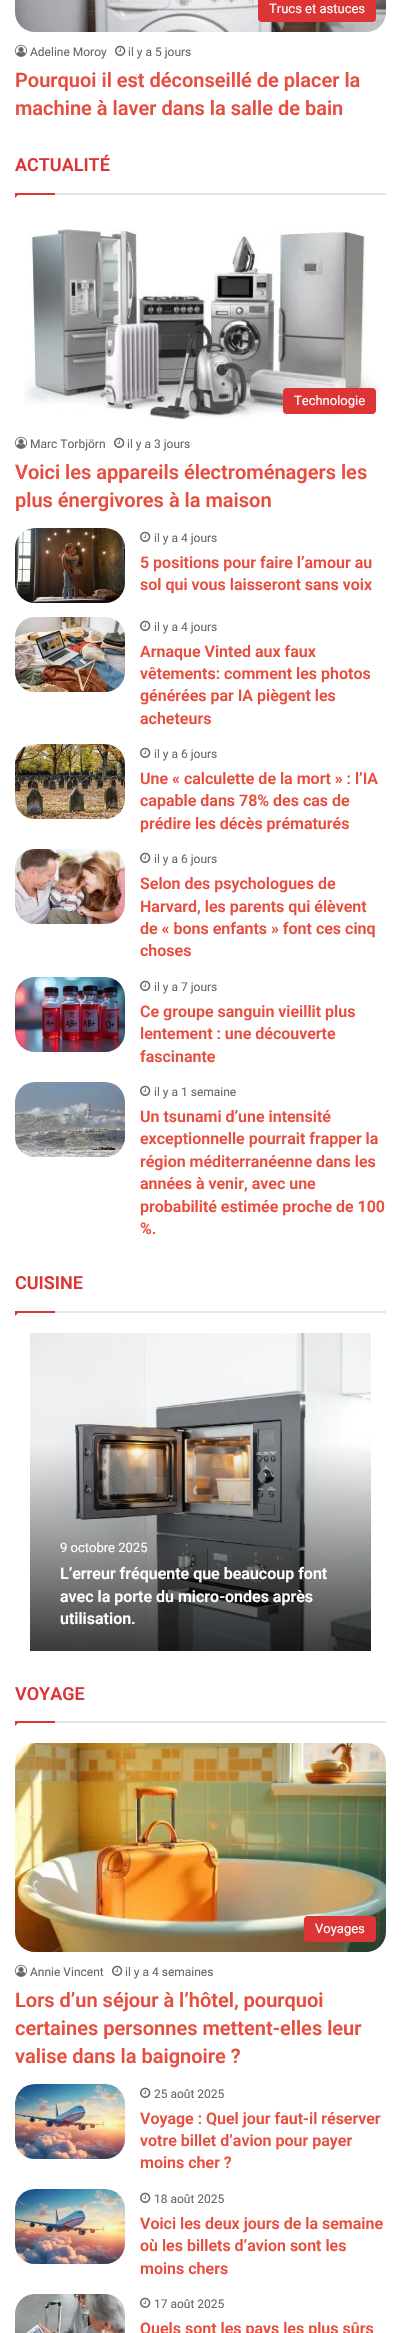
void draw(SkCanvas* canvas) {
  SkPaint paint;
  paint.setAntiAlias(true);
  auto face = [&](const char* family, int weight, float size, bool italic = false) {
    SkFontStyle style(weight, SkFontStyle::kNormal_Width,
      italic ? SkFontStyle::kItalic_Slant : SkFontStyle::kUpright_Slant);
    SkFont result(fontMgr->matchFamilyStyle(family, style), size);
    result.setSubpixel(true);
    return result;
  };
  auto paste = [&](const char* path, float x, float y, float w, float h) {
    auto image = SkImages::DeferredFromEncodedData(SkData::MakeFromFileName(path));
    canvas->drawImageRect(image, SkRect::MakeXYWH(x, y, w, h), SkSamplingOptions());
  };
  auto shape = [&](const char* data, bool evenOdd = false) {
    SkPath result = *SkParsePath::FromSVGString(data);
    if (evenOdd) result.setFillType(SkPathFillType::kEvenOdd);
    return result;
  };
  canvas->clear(0xffffffff);
  paste("img/1.png", 15, 0, 371, 32);
  paint.setColor(0xffdd3535);
  canvas->drawRoundRect(SkRect::MakeXYWH(258, -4, 118, 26), 4, 4, paint);
  paste("img/2.png", 15, 44, 12, 13);
  paste("img/3.png", 115, 45, 11, 11);
  paint.setColor(0xffe6e6e6);
  canvas->drawRect(SkRect::MakeXYWH(55, 193, 331, 2), paint);
  paint.setColor(0xffdd3535);
  canvas->drawPath(shape("M15 193H20L15 198Z"), paint);
  canvas->drawRect(SkRect::MakeXYWH(15, 193, 40, 2), paint);
  paste("img/4.png", 24, 229, 356, 191);
  canvas->drawRoundRect(SkRect::MakeXYWH(283, 388, 93, 26), 4, 4, paint);
  paste("img/2.png", 15, 436, 12, 13);
  paste("img/3.png", 114, 437, 11, 11);
  paste("img/5.png", 15, 528, 110, 75);
  paste("img/3.png", 140, 531, 11, 11);
  paste("img/6.png", 15, 617, 110, 75);
  paste("img/3.png", 140, 620, 11, 11);
  paste("img/7.png", 15, 744, 110, 75);
  paste("img/3.png", 140, 747, 11, 11);
  paste("img/8.png", 15, 849, 110, 75);
  paste("img/3.png", 140, 852, 11, 11);
  paste("img/9.png", 15, 977, 110, 75);
  paste("img/3.png", 140, 980, 11, 11);
  paste("img/10.png", 15, 1082, 110, 75);
  paste("img/3.png", 140, 1085, 11, 11);
  paint.setColor(0xffe6e6e6);
  canvas->drawRect(SkRect::MakeXYWH(55, 1311, 331, 2), paint);
  paint.setColor(0xffdd3333);
  canvas->drawPath(shape("M15 1311H20L15 1316Z"), paint);
  canvas->drawRect(SkRect::MakeXYWH(15, 1311, 40, 2), paint);
  paste("img/11.png", 30, 1333, 341, 318);
  paint.setColor(0xffe6e6e6);
  canvas->drawRect(SkRect::MakeXYWH(55, 1721, 331, 2), paint);
  paint.setColor(0xffdd3535);
  canvas->drawPath(shape("M15 1721H20L15 1726Z"), paint);
  canvas->drawRect(SkRect::MakeXYWH(15, 1721, 40, 2), paint);
  paste("img/12.png", 15, 1743, 371, 209);
  canvas->drawRoundRect(SkRect::MakeXYWH(304, 1916, 72, 26), 4, 4, paint);
  paste("img/2.png", 15, 1964, 12, 13);
  paste("img/3.png", 112, 1965, 11, 11);
  paste("img/13.png", 15, 2084, 110, 75);
  paste("img/3.png", 140, 2087, 11, 11);
  paste("img/13.png", 15, 2189, 110, 75);
  paste("img/3.png", 140, 2192, 11, 11);
  paste("img/14.png", 15, 2294, 110, 39);
  paste("img/3.png", 140, 2297, 11, 11);
  auto f0 = face("Roboto", 400, 13);
  paint.setColor(0xffffffff);
  canvas->drawString("Trucs et astuces", 269, 13, f0, paint);
  auto f1 = face("Roboto", 400, 12);
  paint.setColor(0xff686868);
  canvas->drawString("Adeline Moroy", 30, 56, f1, paint);
  canvas->drawString("il y a 5 jours", 128, 56, f1, paint);
  auto f2 = face("Roboto", 600, 20);
  paint.setColor(0xffe74e3e);
  canvas->drawString("Pourquoi il est déconseillé de placer la", 15, 87, f2, paint);
  canvas->drawString("machine à laver dans la salle de bain", 15, 115, f2, paint);
  auto f3 = face("Roboto", 600, 18);
  paint.setColor(0xffdd3535);
  canvas->drawString("ACTUALITÉ", 15, 171, f3, paint);
  paint.setColor(0xffffffff);
  canvas->drawString("Technologie", 294, 405, f0, paint);
  paint.setColor(0xff686868);
  canvas->drawString("Marc Torbjörn", 30, 448, f1, paint);
  canvas->drawString("il y a 3 jours", 127, 448, f1, paint);
  paint.setColor(0xffe74e3e);
  canvas->drawString("Voici les appareils électroménagers les", 15, 479, f2, paint);
  canvas->drawString("plus énergivores à la maison", 15, 507, f2, paint);
  paint.setColor(0xff686868);
  canvas->drawString("il y a 4 jours", 154, 542, f1, paint);
  auto f4 = face("Roboto", 600, 16);
  paint.setColor(0xffe74e3e);
  canvas->drawString("5 positions pour faire l’amour au", 140, 568, f4, paint);
  canvas->drawString("sol qui vous laisseront sans voix", 140, 590, f4, paint);
  paint.setColor(0xff686868);
  canvas->drawString("il y a 4 jours", 154, 631, f1, paint);
  paint.setColor(0xffe74e3e);
  {
    const struct { const char* s; float x, y; } items[] = {
      {"Arnaque Vinted aux faux", 140, 657},
      {"vêtements: comment les photos", 140, 679},
      {"générées par IA piègent les", 140, 701},
      {"acheteurs", 140, 724},
    };
    for (auto [s, x, y] : items) {
      canvas->drawString(s, x, y, f4, paint);
    }
  }
  paint.setColor(0xff686868);
  canvas->drawString("il y a 6 jours", 154, 758, f1, paint);
  paint.setColor(0xffe74e3e);
  {
    const struct { const char* s; float x, y; } items[] = {
      {"Une « calculette de la mort » : l’IA", 140, 784},
      {"capable dans 78% des cas de", 140, 806},
      {"prédire les décès prématurés", 140, 829},
    };
    for (auto [s, x, y] : items) {
      canvas->drawString(s, x, y, f4, paint);
    }
  }
  paint.setColor(0xff686868);
  canvas->drawString("il y a 6 jours", 154, 863, f1, paint);
  paint.setColor(0xffe74e3e);
  {
    const struct { const char* s; float x, y; } items[] = {
      {"Selon des psychologues de", 140, 889},
      {"Harvard, les parents qui élèvent", 140, 912},
      {"de « bons enfants » font ces cinq", 140, 934},
      {"choses", 140, 956},
    };
    for (auto [s, x, y] : items) {
      canvas->drawString(s, x, y, f4, paint);
    }
  }
  paint.setColor(0xff686868);
  canvas->drawString("il y a 7 jours", 154, 991, f1, paint);
  paint.setColor(0xffe74e3e);
  {
    const struct { const char* s; float x, y; } items[] = {
      {"Ce groupe sanguin vieillit plus", 140, 1017},
      {"lentement : une découverte", 140, 1039},
      {"fascinante", 140, 1062},
    };
    for (auto [s, x, y] : items) {
      canvas->drawString(s, x, y, f4, paint);
    }
  }
  paint.setColor(0xff686868);
  canvas->drawString("il y a 1 semaine", 154, 1096, f1, paint);
  paint.setColor(0xffe74e3e);
  {
    const struct { const char* s; float x, y; } items[] = {
      {"Un tsunami d’une intensité", 140, 1122},
      {"exceptionnelle pourrait frapper la", 140, 1144},
      {"région méditerranéenne dans les", 140, 1167},
      {"années à venir, avec une", 140, 1189},
      {"probabilité estimée proche de 100", 140, 1212},
      {"%.", 140, 1234},
    };
    for (auto [s, x, y] : items) {
      canvas->drawString(s, x, y, f4, paint);
    }
  }
  paint.setColor(0xffdd3535);
  canvas->drawString("CUISINE", 15, 1289, f3, paint);
  paint.setColor(0xffffffff);
  canvas->drawString("9 octobre 2025", 60, 1552, f0, paint);
  {
    const struct { const char* s; float x, y; } items[] = {
      {"L’erreur fréquente que beaucoup font", 60, 1579},
      {"avec la porte du micro-ondes après", 60, 1602},
      {"utilisation.", 60, 1624},
    };
    for (auto [s, x, y] : items) {
      canvas->drawString(s, x, y, f4, paint);
    }
  }
  paint.setColor(0xffdd3535);
  canvas->drawString("VOYAGE", 15, 1700, f3, paint);
  paint.setColor(0xffffffff);
  canvas->drawString("Voyages", 315, 1933, f0, paint);
  paint.setColor(0xff686868);
  canvas->drawString("Annie Vincent", 30, 1976, f1, paint);
  canvas->drawString("il y a 4 semaines", 125, 1976, f1, paint);
  paint.setColor(0xffe74e3e);
  {
    const struct { const char* s; float x, y; } items[] = {
      {"Lors d’un séjour à l’hôtel, pourquoi", 15, 2007},
      {"certaines personnes mettent-elles leur", 15, 2035},
      {"valise dans la baignoire ?", 15, 2063},
    };
    for (auto [s, x, y] : items) {
      canvas->drawString(s, x, y, f2, paint);
    }
  }
  paint.setColor(0xff686868);
  canvas->drawString("25 août 2025", 154, 2098, f1, paint);
  paint.setColor(0xffe74e3e);
  {
    const struct { const char* s; float x, y; } items[] = {
      {"Voyage : Quel jour faut-il réserver", 140, 2124},
      {"votre billet d’avion pour payer", 140, 2146},
      {"moins cher ?", 140, 2168},
    };
    for (auto [s, x, y] : items) {
      canvas->drawString(s, x, y, f4, paint);
    }
  }
  paint.setColor(0xff686868);
  canvas->drawString("18 août 2025", 154, 2203, f1, paint);
  paint.setColor(0xffe74e3e);
  {
    const struct { const char* s; float x, y; } items[] = {
      {"Voici les deux jours de la semaine", 140, 2229},
      {"où les billets d’avion sont les", 140, 2251},
      {"moins chers", 140, 2274},
    };
    for (auto [s, x, y] : items) {
      canvas->drawString(s, x, y, f4, paint);
    }
  }
  paint.setColor(0xff686868);
  canvas->drawString("17 août 2025", 154, 2308, f1, paint);
  paint.setColor(0xffe74e3e);
  canvas->drawString("Quels sont les pays les plus sûrs", 140, 2334, f4, paint);
}
